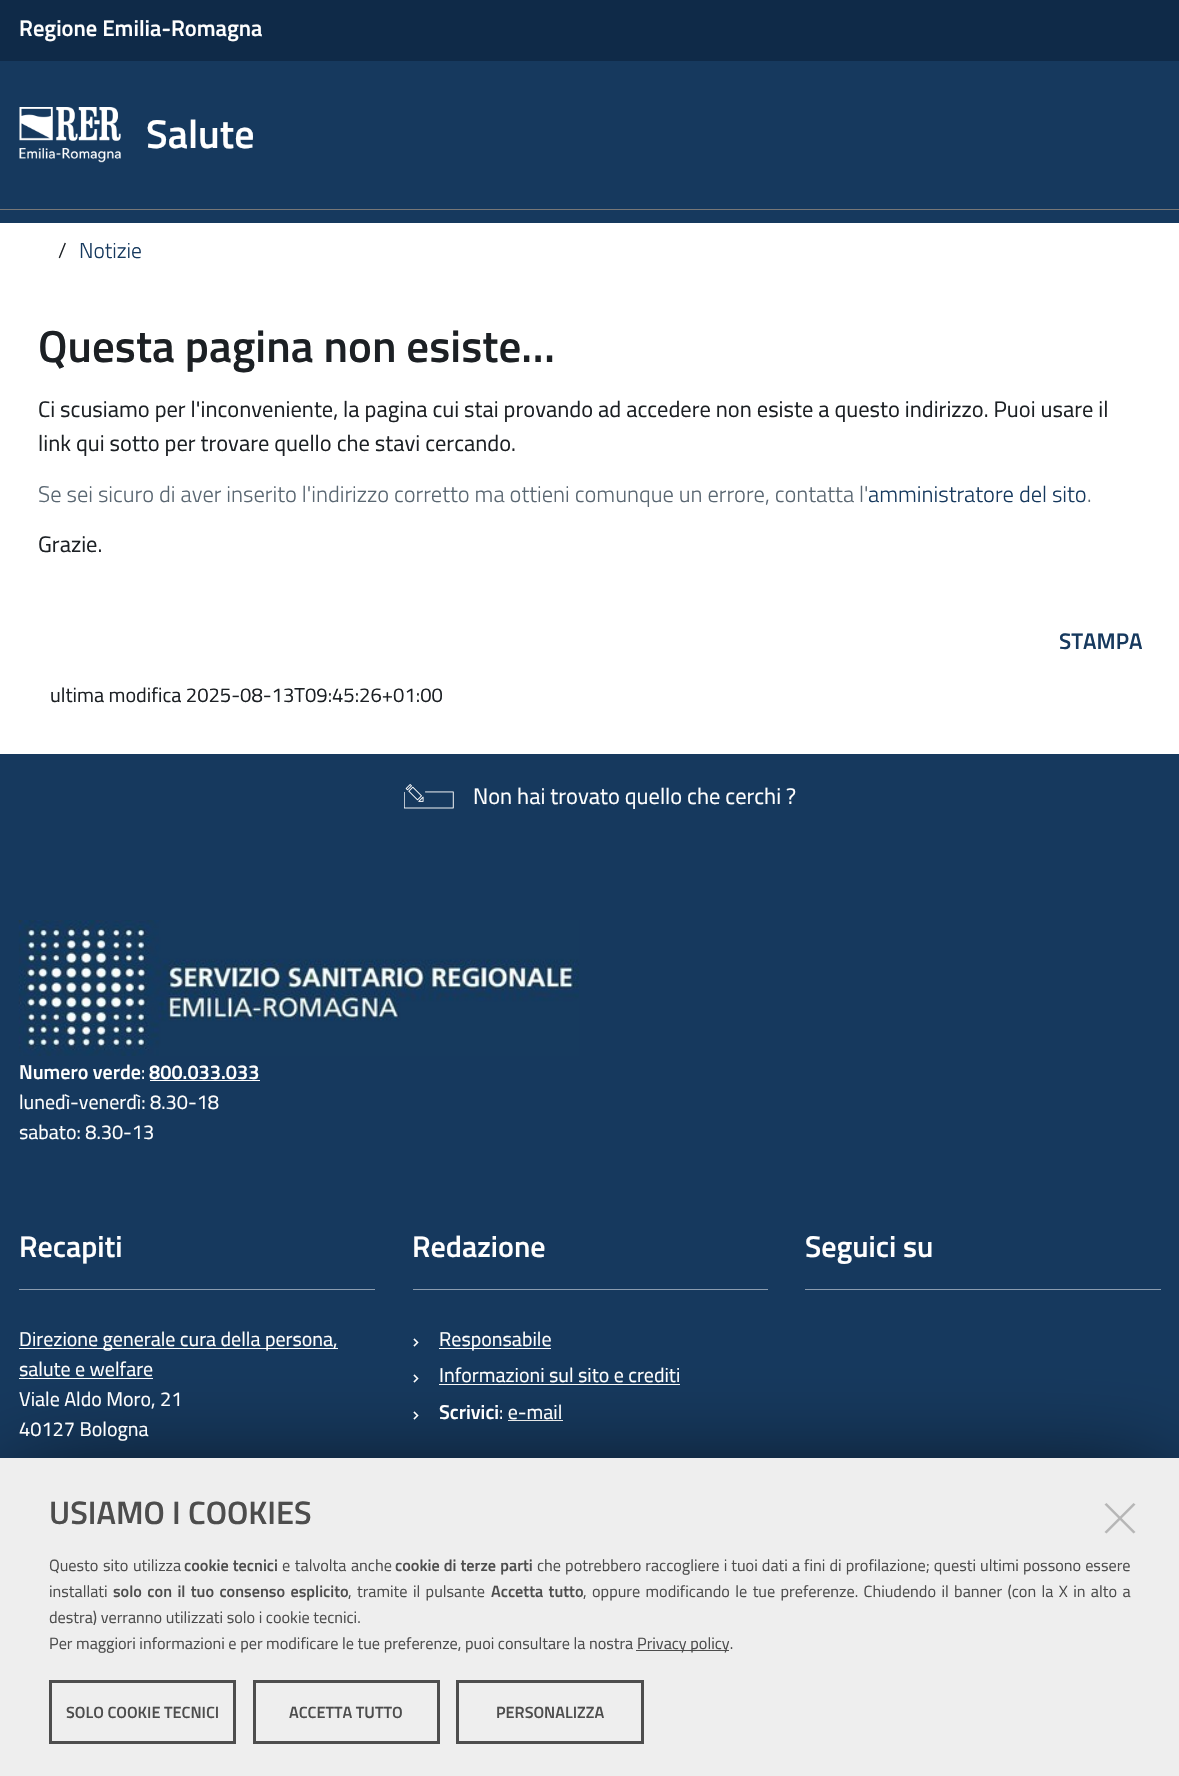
void draw(SkCanvas* canvas) {
  SkPaint paint;
  paint.setAntiAlias(true);
  auto face = [&](const char* family, int weight, float size, bool italic = false) {
    SkFontStyle style(weight, SkFontStyle::kNormal_Width,
      italic ? SkFontStyle::kItalic_Slant : SkFontStyle::kUpright_Slant);
    SkFont result(fontMgr->matchFamilyStyle(family, style), size);
    result.setSubpixel(true);
    return result;
  };
  auto writeSpaced = [&](const char* s, float x, float y, const SkFont& font, const SkPaint& ink, float letter, float word) {
    std::vector<SkGlyphID> glyphs(font.countText(s, strlen(s), SkTextEncoding::kUTF8));
    std::vector<float> xs(glyphs.size());
    font.textToGlyphs(s, strlen(s), SkTextEncoding::kUTF8, glyphs);
    font.getXPos(glyphs, xs, x);
    float extra = 0;
    for (size_t i = 0; i < glyphs.size(); i++) {
      xs[i] += extra;
      extra += letter + word * (glyphs[i] == font.unicharToGlyph(' '));
    }
    canvas->drawTextBlob(SkTextBlob::MakeFromPosHGlyphs(glyphs, xs, y, font), 0, 0, ink);
  };
  auto paste = [&](const char* path, float x, float y, float w, float h) {
    auto image = SkImages::DeferredFromEncodedData(SkData::MakeFromFileName(path));
    canvas->drawImageRect(image, SkRect::MakeXYWH(x, y, w, h), SkSamplingOptions());
  };
  auto shape = [&](const char* data, bool evenOdd = false) {
    SkPath result = *SkParsePath::FromSVGString(data);
    if (evenOdd) result.setFillType(SkPathFillType::kEvenOdd);
    return result;
  };
  canvas->clear(0xffffffff);
  {
    const struct { float x, y, w, h; SkColor color; } items[] = {
      {0, 61, 1179, 162, 0xff16395e},
      {0, 0, 1179, 61, 0xff0f2a48},
      {0, 209, 1179, 1, 0xff777777},
    };
    for (auto [x, y, w, h, color] : items) {
      paint.setColor(color);
      canvas->drawRect(SkRect::MakeXYWH(x, y, w, h), paint);
    }
  }
  paste("img/1.png", 19, 107, 102, 56);
  paint.setColor(0xff16395e);
  canvas->drawRect(SkRect::MakeXYWH(0, 754, 1179, 704), paint);
  paste("img/2.png", 404, 784, 50, 25);
  paste("img/3.png", 18, 920, 561, 136);
  {
    const struct { float x, y, w, h; SkColor color; } items[] = {
      {150, 1080, 110, 1, 0xffffffff},
      {19, 1289, 356, 1, 0xff8b9caf},
      {19, 1348, 319, 1, 0xffffffff},
      {19, 1378, 134, 1, 0xffffffff},
      {413, 1289, 355, 1, 0xff8b9caf},
      {439, 1348, 112, 1, 0xffffffff},
      {439, 1384, 241, 1, 0xffffffff},
      {508, 1420, 55, 1, 0xffffffff},
      {805, 1289, 356, 1, 0xff8b9caf},
    };
    for (auto [x, y, w, h, color] : items) {
      paint.setColor(color);
      canvas->drawRect(SkRect::MakeXYWH(x, y, w, h), paint);
    }
  }
  paint.setColor(0xff000000);
  paint.setMaskFilter(SkMaskFilter::MakeBlur(kNormal_SkBlurStyle, 56));
  canvas->drawRect(SkRect::MakeXYWH(11, 1491, 1158, 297), paint);
  paint.setMaskFilter(nullptr);
  paint.setColor(0xffeeeeee);
  canvas->drawRect(SkRect::MakeXYWH(0, 1458, 1179, 318), paint);
  paint.setColor(0xff4d4d4d);
  canvas->drawRect(SkRect::MakeXYWH(636, 1650, 93, 1), paint);
  paint.setColor(0xffb6b6b6);
  canvas->drawPath(shape("M1133.5 1503L1135.5 1504.5L1106.5 1533.5L1104.5 1532Z"), paint);
  canvas->drawPath(shape("M1104.5 1504.5L1106.5 1503L1135.5 1532L1133.5 1533.5Z"), paint);
  paint.setStroke(true);
  paint.setStrokeWidth(3);
  paint.setColor(0xff4d4d4d);
  canvas->drawRect(SkRect::MakeXYWH(50.5f, 1681.5f, 184, 61), paint);
  canvas->drawRect(SkRect::MakeXYWH(254.5f, 1681.5f, 184, 61), paint);
  canvas->drawRect(SkRect::MakeXYWH(457.5f, 1681.5f, 185, 61), paint);
  auto f0 = face("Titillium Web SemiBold", 600, 22.5f);
  paint.setStroke(false);
  paint.setColor(0xffffffff);
  canvas->drawString("Regione Emilia-Romagna", 19, 36, f0, paint);
  auto f1 = face("Titillium Web SemiBold", 600, 40);
  canvas->drawString("Salute", 146, 148, f1, paint);
  auto f2 = face("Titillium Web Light", 300, 21.5f);
  paint.setColor(0xff1c2024);
  canvas->drawString("/", 58, 258, f2, paint);
  paint.setColor(0xff16395e);
  canvas->drawString("Notizie", 79, 258, f2, paint);
  auto f3 = face("Titillium Web SemiBold", 600, 45);
  paint.setColor(0xff1c2024);
  canvas->drawString("Questa pagina non esiste…", 38, 362, f3, paint);
  auto f4 = face("Titillium Web", 400, 22.5f);
  canvas->drawString("Ci scusiamo per l'inconveniente, la pagina cui stai provando ad accedere non esiste a questo indirizzo. Puoi usare il", 38, 417, f4, paint);
  canvas->drawString("link qui sotto per trovare quello che stavi cercando.", 38, 451, f4, paint);
  auto f5 = face("Titillium Web Light", 300, 22.5f);
  paint.setColor(0xff5a6772);
  canvas->drawString("Se sei sicuro di aver inserito l'indirizzo corretto ma ottieni comunque un errore, contatta l'", 38, 502, f5, paint);
  paint.setColor(0xff16395e);
  canvas->drawString("amministratore del sito", 868, 502, f5, paint);
  paint.setColor(0xff5a6772);
  canvas->drawString(".", 1087, 502, f5, paint);
  paint.setColor(0xff1c2024);
  canvas->drawString("Grazie.", 38, 552, f4, paint);
  paint.setColor(0xff16395e);
  canvas->drawString("STAMPA", 1059, 649, f0, paint);
  auto f6 = face("Titillium Web", 400, 20.25f);
  paint.setColor(0xff1c2024);
  canvas->drawString("ultima modifica 2025-08-13T09:45:26+01:00", 50, 702, f6, paint);
  paint.setColor(0xffffffff);
  canvas->drawString("Non hai trovato quello che cerchi ?", 473, 804, f4, paint);
  auto f7 = face("Titillium Web SemiBold", 600, 20);
  canvas->drawString("Numero verde", 19, 1079, f7, paint);
  auto f8 = face("Titillium Web", 400, 20);
  canvas->drawString(":", 141, 1079, f8, paint);
  canvas->drawString("800.033.033", 149, 1079, f7, paint);
  canvas->drawString("lunedì-venerdì: 8.30-18", 19, 1109, f8, paint);
  canvas->drawString("sabato: 8.30-13", 19, 1139, f8, paint);
  auto f9 = face("Titillium Web SemiBold", 600, 30);
  canvas->drawString("Recapiti", 19, 1257, f9, paint);
  {
    const struct { const char* s; float x, y; } items[] = {
      {"Direzione generale cura della persona,", 19, 1346},
      {"salute e welfare", 19, 1376},
      {"Viale Aldo Moro, 21", 19, 1406},
      {"40127 Bologna", 19, 1436},
    };
    for (auto [s, x, y] : items) {
      canvas->drawString(s, x, y, f8, paint);
    }
  }
  canvas->drawString("Redazione", 412, 1257, f9, paint);
  auto f10 = face("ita", 400, 8);
  canvas->drawString("⏵", 412, 1346, f10, paint);
  canvas->drawString("Responsabile", 439, 1346, f8, paint);
  canvas->drawString("⏵", 412, 1382, f10, paint);
  canvas->drawString("Informazioni sul sito e crediti", 439, 1382, f8, paint);
  canvas->drawString("⏵", 412, 1419, f10, paint);
  canvas->drawString("Scrivici", 439, 1419, f7, paint);
  canvas->drawString(": e-mail", 499, 1419, f8, paint);
  canvas->drawString("Seguici su", 805, 1257, f9, paint);
  auto f11 = face("Titillium Web SemiBold", 600, 32.5f);
  paint.setColor(0xff4d4d4d);
  canvas->drawString("USIAMO I COOKIES", 49, 1524, f11, paint);
  auto f12 = face("Titillium Web", 400, 16.25f);
  writeSpaced("Questo sito utilizza", 49, 1571, f12, paint, 0, 1);
  auto f13 = face("Titillium Web SemiBold", 600, 16.25f);
  writeSpaced("cookie tecnici", 184, 1571, f13, paint, 0, 0.5f);
  writeSpaced("e talvolta anche", 282, 1571, f12, paint, 0, 1);
  writeSpaced("cookie di terze parti", 395, 1571, f13, paint, 0, 0.5f);
  writeSpaced("che potrebbero raccogliere i tuoi dati a fini di profilazione; questi ultimi possono essere", 537, 1571, f12, paint, 0, 0.5f);
  canvas->drawString("installati", 49, 1597, f12, paint);
  writeSpaced("solo con il tuo consenso esplicito", 113, 1597, f13, paint, 0, 1.8f);
  writeSpaced(", tramite il pulsante", 348, 1597, f12, paint, 0, 1.8f);
  writeSpaced("Accetta tutto", 491, 1597, f13, paint, 0, 1.8f);
  writeSpaced(", oppure modificando le tue preferenze. Chiudendo il banner (con la X in alto a", 583, 1597, f12, paint, 0, 1.8f);
  {
    const struct { const char* s; float x, y; } items[] = {
      {"destra) verranno utilizzati solo i cookie tecnici.", 49, 1623},
      {"Per maggiori informazioni e per modificare le tue preferenze, puoi consultare la nostra", 49, 1649},
      {"Privacy policy.", 637, 1649},
    };
    for (auto [s, x, y] : items) {
      canvas->drawString(s, x, y, f12, paint);
    }
  }
  {
    const struct { const char* s; float x, y; } items[] = {
      {"SOLO COOKIE TECNICI", 66, 1718},
      {"ACCETTA TUTTO", 289, 1718},
      {"PERSONALIZZA", 496, 1718},
    };
    for (auto [s, x, y] : items) {
      canvas->drawString(s, x, y, f13, paint);
    }
  }
}
